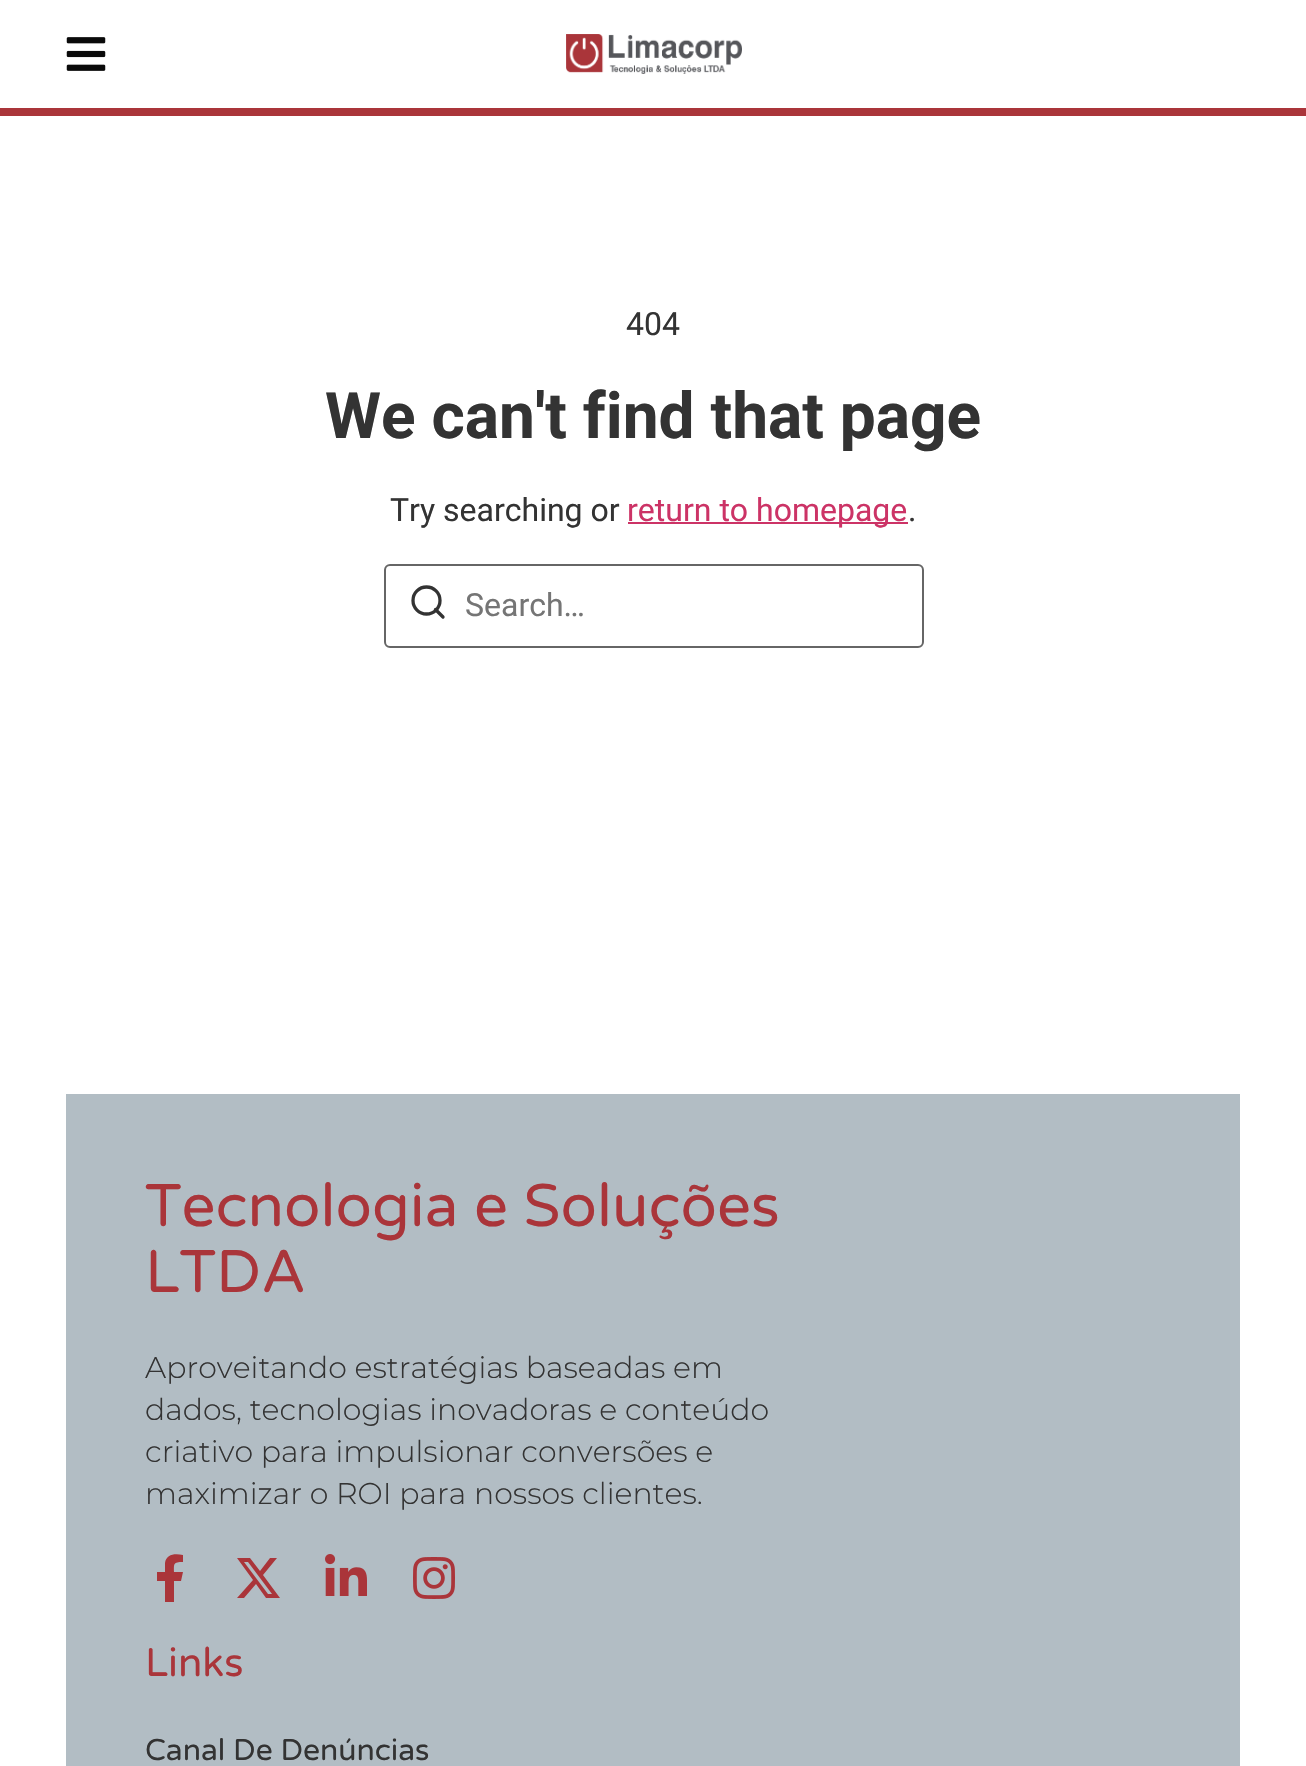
void draw(SkCanvas* canvas) {
  SkPaint paint;
  paint.setAntiAlias(true);
  auto face = [&](const char* family, int weight, float size, bool italic = false) {
    SkFontStyle style(weight, SkFontStyle::kNormal_Width,
      italic ? SkFontStyle::kItalic_Slant : SkFontStyle::kUpright_Slant);
    SkFont result(fontMgr->matchFamilyStyle(family, style), size);
    result.setSubpixel(true);
    return result;
  };
  auto paste = [&](const char* path, float x, float y, float w, float h) {
    auto image = SkImages::DeferredFromEncodedData(SkData::MakeFromFileName(path));
    canvas->drawImageRect(image, SkRect::MakeXYWH(x, y, w, h), SkSamplingOptions());
  };
  auto shape = [&](const char* data, bool evenOdd = false) {
    SkPath result = *SkParsePath::FromSVGString(data);
    if (evenOdd) result.setFillType(SkPathFillType::kEvenOdd);
    return result;
  };
  canvas->clear(0xffffffff);
  paint.setColor(0xffaa353a);
  canvas->drawRect(SkRect::MakeXYWH(0, 108, 1306, 8), paint);
  paste("img/1.png", 66, 37, 40, 34);
  paste("img/2.png", 566, 34, 176, 40);
  paint.setColor(0xffcc3366);
  canvas->drawRect(SkRect::MakeXYWH(628, 522, 280, 2), paint);
  paint.setStroke(true);
  paint.setStrokeWidth(2);
  paint.setColor(0xff666666);
  canvas->drawRoundRect(SkRect::MakeXYWH(385, 565, 538, 82), 5, 5, paint);
  paint.setStrokeWidth(3.3f);
  paint.setColor(0xff333333);
  canvas->drawCircle(426.5f, 600.5f, 13.5f, paint);
  paint.setStrokeCap(SkPaint::kRound_Cap);
  paint.setStrokeJoin(SkPaint::kRound_Join);
  canvas->drawPath(shape("M443 617L435.5 609.5"), paint);
  paint.setStroke(false);
  paint.setColor(0xffb2bdc4);
  canvas->drawRect(SkRect::MakeXYWH(66, 1094, 1174, 672), paint);
  paint.setColor(0xffaa353a);
  canvas->drawPath(shape("M181 1581L183 1572H174C174 1564 173 1562 183 1562V1555C175 1553 166 1554 165 1563V1572H157V1581H165V1602H174V1581Z"), paint);
  canvas->drawPath(shape("M270 1558H277L263 1575L280 1598H266L256 1584L244 1598H237L253 1580L237 1558H250L260 1571ZM268 1594H272L248 1562H244Z"), paint);
  paste("img/3.png", 325, 1554, 42, 42);
  paste("img/4.png", 413, 1557, 42, 42);
  auto f0 = face("Roboto", 400, 32);
  paint.setColor(0xff333333);
  canvas->drawString("404", 626, 335, f0, paint);
  auto f1 = face("Roboto", 700, 64);
  canvas->drawString("We can't find that page", 325, 438, f1, paint);
  canvas->drawString("Try searching or", 390, 521, f0, paint);
  paint.setColor(0xffcc3366);
  canvas->drawString("return to homepage", 627, 521, f0, paint);
  paint.setColor(0xff333333);
  canvas->drawString(".", 908, 521, f0, paint);
  paint.setColor(0xff757575);
  canvas->drawString("Search…", 465, 616, f0, paint);
  auto f2 = face("Varela Round", 400, 60);
  paint.setColor(0xffaa353a);
  canvas->drawString("Tecnologia e Soluções", 145, 1226, f2, paint);
  canvas->drawString("LTDA", 145, 1292, f2, paint);
  auto f3 = face("Montserrat", 300, 30);
  paint.setColor(0xff333333);
  {
    const struct { const char* s; float x, y; } items[] = {
      {"Aproveitando estratégias baseadas em", 145, 1378},
      {"dados, tecnologias inovadoras e conteúdo", 145, 1420},
      {"criativo para impulsionar conversões e", 145, 1462},
      {"maximizar o ROI para nossos clientes.", 145, 1504},
    };
    for (auto [s, x, y] : items) {
      canvas->drawString(s, x, y, f3, paint);
    }
  }
  auto f4 = face("Varela Round", 400, 40);
  paint.setColor(0xffaa353a);
  canvas->drawString("Links", 145, 1676, f4, paint);
  auto f5 = face("Varela Round", 400, 30);
  paint.setColor(0xff333333);
  canvas->drawString("Canal De Denúncias", 145, 1760, f5, paint);
}
